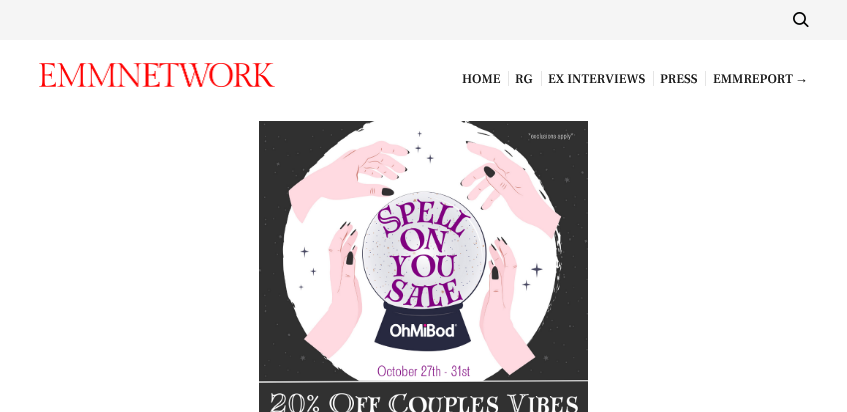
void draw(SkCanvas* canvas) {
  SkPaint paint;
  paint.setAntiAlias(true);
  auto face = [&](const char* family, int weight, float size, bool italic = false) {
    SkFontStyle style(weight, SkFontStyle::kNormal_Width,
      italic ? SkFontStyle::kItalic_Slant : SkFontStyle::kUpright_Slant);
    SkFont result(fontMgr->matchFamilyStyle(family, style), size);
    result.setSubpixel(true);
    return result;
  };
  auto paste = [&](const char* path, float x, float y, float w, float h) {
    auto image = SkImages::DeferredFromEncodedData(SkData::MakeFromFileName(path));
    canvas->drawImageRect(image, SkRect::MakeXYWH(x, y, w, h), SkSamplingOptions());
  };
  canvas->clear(0xffffffff);
  paint.setColor(0xfff5f5f5);
  canvas->drawRect(SkRect::MakeXYWH(0, 0, 847, 40), paint);
  paste("img/1.png", 793, 12, 16, 16);
  paste("img/2.png", 39, 63, 236, 24);
  {
    const struct { float x, y, w, h; SkColor color; } items[] = {
      {508, 71, 1, 15, 0xffe5e5e5},
      {541, 71, 1, 15, 0xffe5e5e5},
      {653, 71, 1, 15, 0xffe5e5e5},
      {705, 71, 1, 15, 0xffe5e5e5},
    };
    for (auto [x, y, w, h, color] : items) {
      paint.setColor(color);
      canvas->drawRect(SkRect::MakeXYWH(x, y, w, h), paint);
    }
  }
  paste("img/3.png", 259, 121, 329, 291);
  auto f0 = face("Frank Ruhl Libre", 500, 13);
  paint.setColor(0xff1b1b1b);
  {
    const struct { const char* s; float x, y; } items[] = {
      {"HOME", 462, 83},
      {"RG", 515, 83},
      {"EX INTERVIEWS", 548, 83},
      {"PRESS", 660, 83},
      {"EMMREPORT", 713, 83},
    };
    for (auto [s, x, y] : items) {
      canvas->drawString(s, x, y, f0, paint);
    }
  }
  auto f1 = face("Liberation Serif", 400, 13);
  canvas->drawString("→", 795, 83, f1, paint);
}
